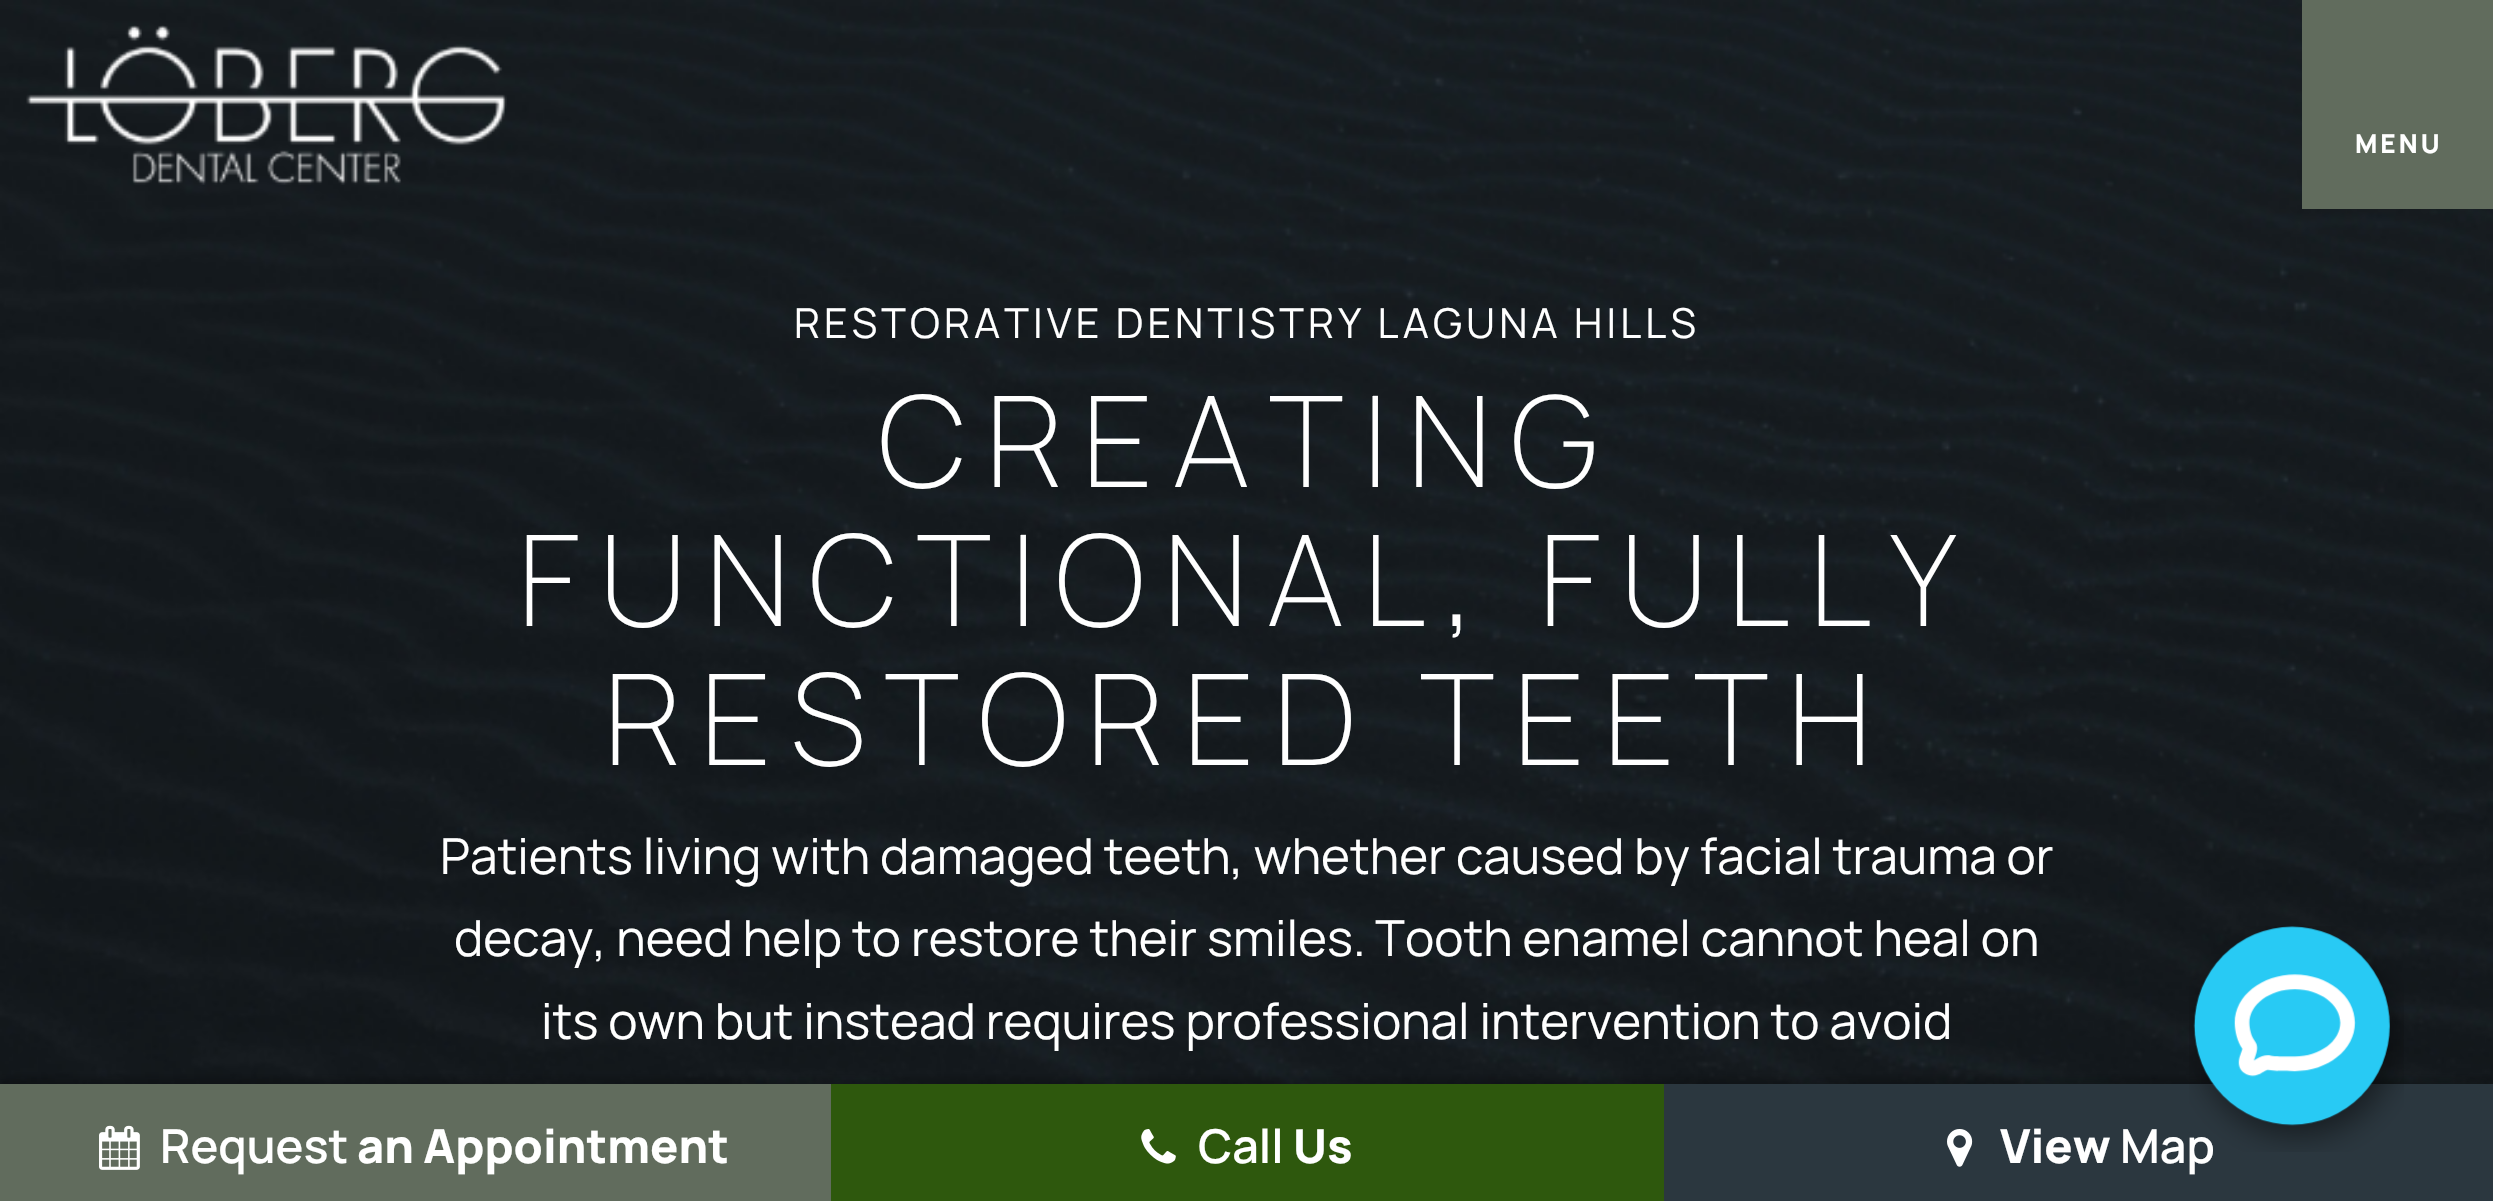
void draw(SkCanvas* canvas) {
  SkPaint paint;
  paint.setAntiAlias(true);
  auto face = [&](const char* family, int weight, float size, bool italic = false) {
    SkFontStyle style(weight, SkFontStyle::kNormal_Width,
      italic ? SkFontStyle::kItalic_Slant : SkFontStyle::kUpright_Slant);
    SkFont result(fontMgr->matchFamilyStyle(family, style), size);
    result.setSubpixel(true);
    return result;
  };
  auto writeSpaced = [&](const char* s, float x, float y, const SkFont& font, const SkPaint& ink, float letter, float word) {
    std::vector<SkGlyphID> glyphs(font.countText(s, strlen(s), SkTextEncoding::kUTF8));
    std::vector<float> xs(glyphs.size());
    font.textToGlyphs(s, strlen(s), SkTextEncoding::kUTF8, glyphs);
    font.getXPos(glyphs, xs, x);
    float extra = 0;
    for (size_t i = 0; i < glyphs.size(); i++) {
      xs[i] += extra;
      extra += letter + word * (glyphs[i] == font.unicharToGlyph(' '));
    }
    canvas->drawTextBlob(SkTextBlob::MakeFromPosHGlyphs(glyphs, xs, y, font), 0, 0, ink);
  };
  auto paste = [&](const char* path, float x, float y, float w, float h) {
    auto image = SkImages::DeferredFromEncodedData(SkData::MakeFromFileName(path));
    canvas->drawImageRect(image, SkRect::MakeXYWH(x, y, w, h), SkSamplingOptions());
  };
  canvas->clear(0xffffffff);
  paste("img/2.png", 0, 0, 2493, 1084);
  paste("img/1.png", 26, 25, 481, 160);
  paint.setColor(0xff616c5d);
  canvas->drawRect(SkRect::MakeXYWH(2302, 0, 191, 209), paint);
  paint.setColor(0x33000000);
  paint.setMaskFilter(SkMaskFilter::MakeBlur(kNormal_SkBlurStyle, 3));
  canvas->drawRect(SkRect::MakeXYWH(0, 1078, 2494, 118), paint);
  paint.setMaskFilter(nullptr);
  paint.setColor(0xff616c5d);
  canvas->drawRect(SkRect::MakeXYWH(0, 1084, 831, 117), paint);
  paste("img/4.png", 99, 1125, 41, 45);
  paint.setColor(0xff2e580d);
  canvas->drawRect(SkRect::MakeXYWH(831, 1084, 833, 117), paint);
  paste("img/5.png", 1141, 1129, 35, 35);
  paint.setColor(0xff2b373f);
  canvas->drawRect(SkRect::MakeXYWH(1664, 1084, 829, 117), paint);
  paste("img/6.png", 1947, 1129, 26, 38);
  auto f0 = face("Manrope", 800, 26);
  paint.setColor(0xffffffff);
  writeSpaced("MENU", 2355, 153, f0, paint, 3, 0);
  auto f1 = face("Manrope", 400, 41.25f);
  writeSpaced("RESTORATIVE DENTISTRY LAGUNA HILLS", 794, 338, f1, paint, 4.1f, 0);
  auto f2 = face("Manrope", 200, 126.5f);
  {
    const struct { const char* s; float x, y; } items[] = {
      {"CREATING", 878, 487},
      {"FUNCTIONAL, FULLY", 518, 626},
      {"RESTORED TEETH", 604, 765},
    };
    for (auto [s, x, y] : items) {
      writeSpaced(s, x, y, f2, paint, 19.25f, 0);
    }
  }
  auto f3 = face("Manrope", 400, 49.5f);
  {
    const struct { const char* s; float x, y; } items[] = {
      {"Patients living with damaged teeth, whether caused by facial trauma or", 440, 874},
      {"decay, need help to restore their smiles. Tooth enamel cannot heal on", 454, 956},
      {"its own but instead requires professional intervention to avoid", 541, 1039},
    };
    for (auto [s, x, y] : items) {
      canvas->drawString(s, x, y, f3, paint);
    }
  }
  auto f4 = face("Manrope", 600, 46.75f);
  canvas->drawString("Request", 160, 1163, f4, paint);
  auto f5 = face("Manrope", 800, 46.75f);
  canvas->drawString("an Appointment", 357, 1163, f5, paint);
  canvas->drawString("Call", 1198, 1163, f4, paint);
  canvas->drawString("Us", 1293, 1163, f5, paint);
  canvas->drawString("View", 2000, 1163, f5, paint);
  canvas->drawString("Map", 2120, 1163, f4, paint);
  paste("img/3.png", 2189, 926, 215, 226);
}
